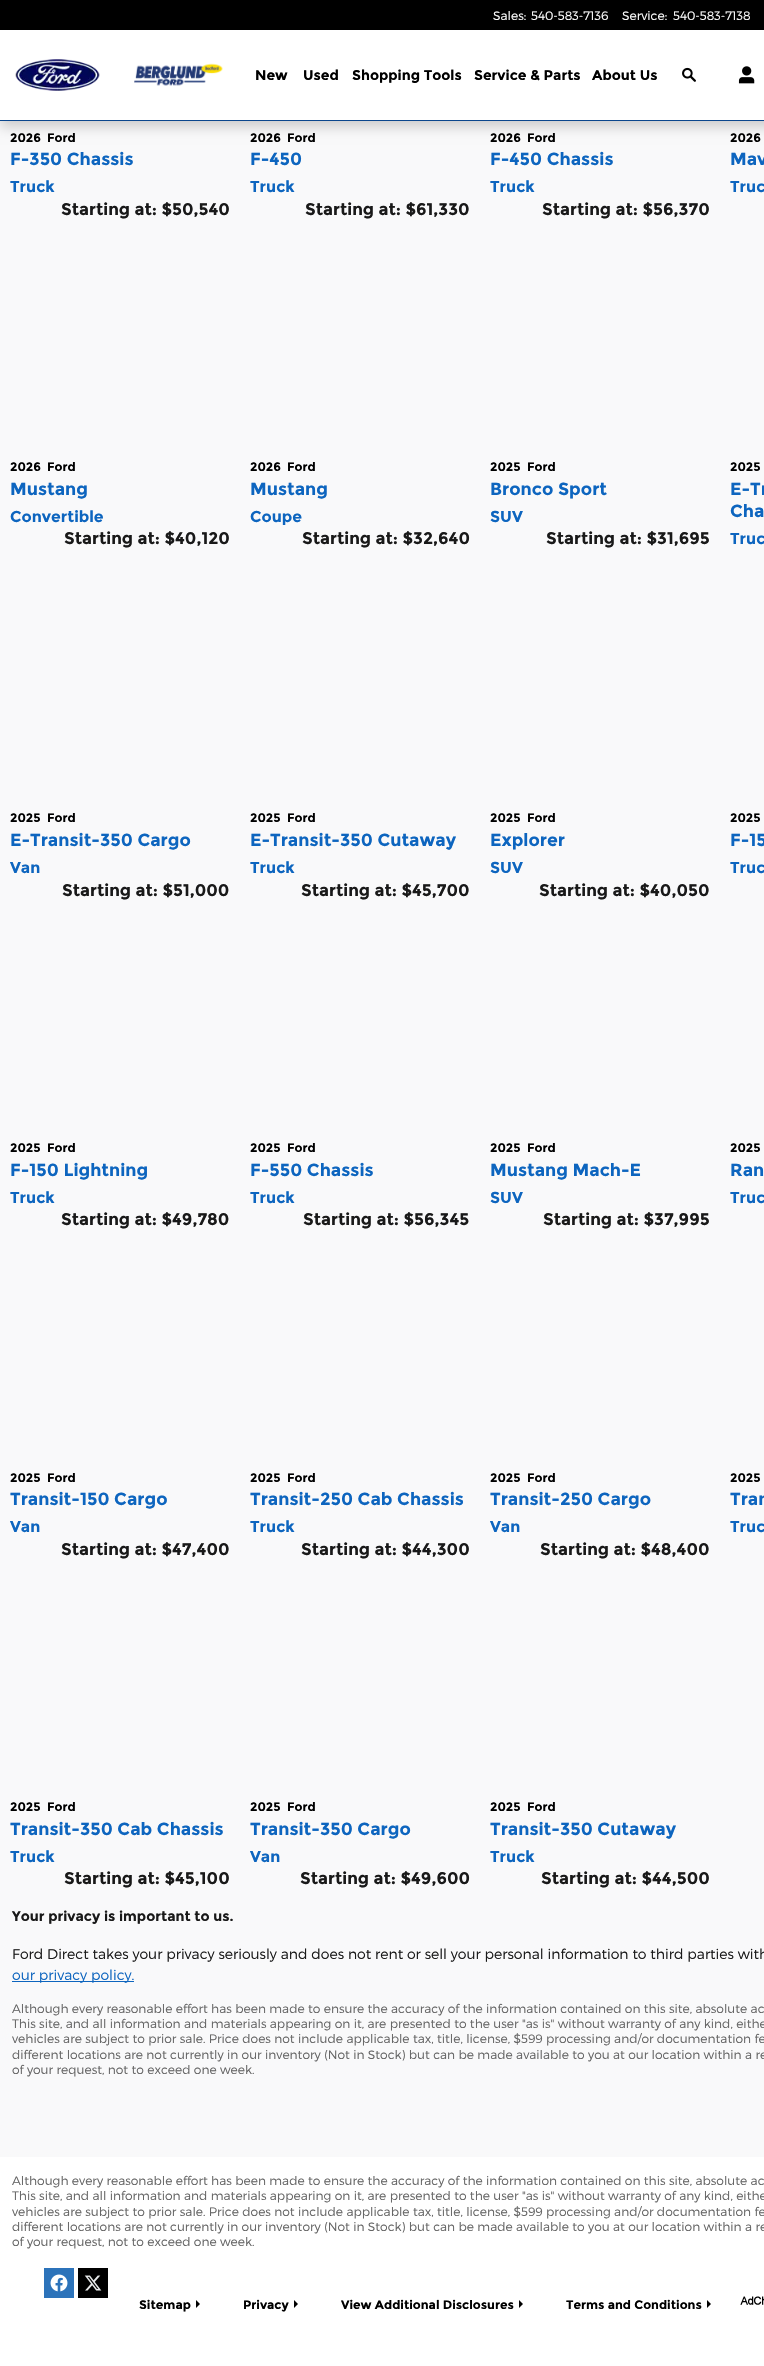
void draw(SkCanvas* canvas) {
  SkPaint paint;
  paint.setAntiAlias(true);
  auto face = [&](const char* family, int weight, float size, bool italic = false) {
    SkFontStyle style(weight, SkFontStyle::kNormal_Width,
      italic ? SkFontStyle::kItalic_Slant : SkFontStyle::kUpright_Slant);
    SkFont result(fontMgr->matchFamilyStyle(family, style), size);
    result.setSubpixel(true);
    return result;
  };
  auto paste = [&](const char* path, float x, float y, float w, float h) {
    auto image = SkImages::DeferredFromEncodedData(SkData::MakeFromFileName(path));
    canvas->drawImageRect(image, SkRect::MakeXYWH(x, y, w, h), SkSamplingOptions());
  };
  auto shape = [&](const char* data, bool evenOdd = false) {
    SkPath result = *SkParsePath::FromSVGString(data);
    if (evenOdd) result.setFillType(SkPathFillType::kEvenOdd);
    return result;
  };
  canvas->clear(0xfff9f9fa);
  paint.setColor(0x2e000000);
  paint.setMaskFilter(SkMaskFilter::MakeBlur(kNormal_SkBlurStyle, 6));
  canvas->drawRect(SkRect::MakeXYWH(0, 6, 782, 121), paint);
  paint.setMaskFilter(nullptr);
  {
    const struct { float x, y, w, h; SkColor color; } items[] = {
      {0, 30, 764, 90, 0xffffffff},
      {0, 120, 764, 1, 0xff0a468d},
      {0, 0, 764, 30, 0xff000000},
    };
    for (auto [x, y, w, h, color] : items) {
      paint.setColor(color);
      canvas->drawRect(SkRect::MakeXYWH(x, y, w, h), paint);
    }
  }
  paste("img/1.png", 15, 59, 85, 32);
  paste("img/2.png", 134, 63, 89, 23);
  paste("img/3.png", 682, 67, 14, 15);
  paste("img/4.png", 738, 66, 17, 18);
  paint.setColor(0xff0d65bf);
  canvas->drawRect(SkRect::MakeXYWH(12, 1981, 122, 1), paint);
  paint.setColor(0xffffffff);
  canvas->drawRect(SkRect::MakeXYWH(0, 2157, 764, 209), paint);
  paste("img/5.png", 44, 2268, 30, 30);
  paste("img/6.png", 78, 2268, 30, 30);
  paint.setColor(0xff000000);
  canvas->drawPath(shape("M196 2300V2308L200 2304Z"), paint);
  canvas->drawPath(shape("M294 2300V2308L298 2304Z"), paint);
  canvas->drawPath(shape("M519 2300V2308L523 2304Z"), paint);
  canvas->drawPath(shape("M707 2300V2308L711 2304Z"), paint);
  paste("img/7.png", 740, 2296, 24, 9);
  auto f0 = face("Montserrat", 300, 12.25f);
  paint.setColor(0xffffffff);
  {
    const struct { const char* s; float x, y; } items[] = {
      {"Sales:", 493, 20},
      {"540-583-7136", 531, 20},
      {"Service:", 622, 20},
      {"540-583-7138", 673, 20},
    };
    for (auto [s, x, y] : items) {
      canvas->drawString(s, x, y, f0, paint);
    }
  }
  auto f1 = face("Montserrat", 700, 14);
  paint.setColor(0xff000000);
  {
    const struct { const char* s; float x, y; } items[] = {
      {"New", 255, 80},
      {"Used", 303, 80},
      {"Shopping Tools", 352, 80},
      {"Service & Parts", 474, 80},
      {"About Us", 592, 80},
    };
    for (auto [s, x, y] : items) {
      canvas->drawString(s, x, y, f1, paint);
    }
  }
  auto f2 = face("Montserrat", 700, 12.25f);
  canvas->drawString("2026", 10, 142, f2, paint);
  canvas->drawString("Ford", 47, 142, f2, paint);
  auto f3 = face("Montserrat", 700, 17.5f);
  paint.setColor(0xff0d65bf);
  canvas->drawString("F-350 Chassis", 10, 165, f3, paint);
  auto f4 = face("Montserrat", 700, 15.75f);
  canvas->drawString("Truck", 10, 192, f4, paint);
  auto f5 = face("Montserrat", 700, 16.75f);
  paint.setColor(0xff191919);
  canvas->drawString("Starting at: $50,540", 61, 215, f5, paint);
  paint.setColor(0xff000000);
  canvas->drawString("2026", 250, 142, f2, paint);
  canvas->drawString("Ford", 287, 142, f2, paint);
  paint.setColor(0xff0d65bf);
  canvas->drawString("F-450", 250, 165, f3, paint);
  canvas->drawString("Truck", 250, 192, f4, paint);
  paint.setColor(0xff191919);
  canvas->drawString("Starting at: $61,330", 305, 215, f5, paint);
  paint.setColor(0xff000000);
  canvas->drawString("2026", 490, 142, f2, paint);
  canvas->drawString("Ford", 527, 142, f2, paint);
  paint.setColor(0xff0d65bf);
  canvas->drawString("F-450 Chassis", 490, 165, f3, paint);
  canvas->drawString("Truck", 490, 192, f4, paint);
  paint.setColor(0xff191919);
  canvas->drawString("Starting at: $56,370", 542, 215, f5, paint);
  paint.setColor(0xff000000);
  canvas->drawString("2026", 730, 142, f2, paint);
  paint.setColor(0xff0d65bf);
  canvas->drawString("Mav", 730, 165, f3, paint);
  canvas->drawString("Truc", 730, 192, f4, paint);
  paint.setColor(0xff000000);
  canvas->drawString("2026", 10, 471, f2, paint);
  canvas->drawString("Ford", 47, 471, f2, paint);
  paint.setColor(0xff0d65bf);
  canvas->drawString("Mustang", 10, 495, f3, paint);
  canvas->drawString("Convertible", 10, 522, f4, paint);
  paint.setColor(0xff191919);
  canvas->drawString("Starting at: $40,120", 64, 544, f5, paint);
  paint.setColor(0xff000000);
  canvas->drawString("2026", 250, 471, f2, paint);
  canvas->drawString("Ford", 287, 471, f2, paint);
  paint.setColor(0xff0d65bf);
  canvas->drawString("Mustang", 250, 495, f3, paint);
  canvas->drawString("Coupe", 250, 522, f4, paint);
  paint.setColor(0xff191919);
  canvas->drawString("Starting at: $32,640", 302, 544, f5, paint);
  paint.setColor(0xff000000);
  canvas->drawString("2025", 490, 471, f2, paint);
  canvas->drawString("Ford", 527, 471, f2, paint);
  paint.setColor(0xff0d65bf);
  canvas->drawString("Bronco Sport", 490, 495, f3, paint);
  canvas->drawString("SUV", 490, 522, f4, paint);
  paint.setColor(0xff191919);
  canvas->drawString("Starting at: $31,695", 546, 544, f5, paint);
  paint.setColor(0xff000000);
  canvas->drawString("2025", 730, 471, f2, paint);
  paint.setColor(0xff0d65bf);
  canvas->drawString("E-Tr", 730, 495, f3, paint);
  canvas->drawString("Cha", 730, 517, f3, paint);
  canvas->drawString("Truc", 730, 544, f4, paint);
  paint.setColor(0xff000000);
  canvas->drawString("2025", 10, 822, f2, paint);
  canvas->drawString("Ford", 47, 822, f2, paint);
  paint.setColor(0xff0d65bf);
  canvas->drawString("E-Transit-350 Cargo", 10, 846, f3, paint);
  canvas->drawString("Van", 10, 873, f4, paint);
  paint.setColor(0xff191919);
  canvas->drawString("Starting at: $51,000", 62, 896, f5, paint);
  paint.setColor(0xff000000);
  canvas->drawString("2025", 250, 822, f2, paint);
  canvas->drawString("Ford", 287, 822, f2, paint);
  paint.setColor(0xff0d65bf);
  canvas->drawString("E-Transit-350 Cutaway", 250, 846, f3, paint);
  canvas->drawString("Truck", 250, 873, f4, paint);
  paint.setColor(0xff191919);
  canvas->drawString("Starting at: $45,700", 301, 896, f5, paint);
  paint.setColor(0xff000000);
  canvas->drawString("2025", 490, 822, f2, paint);
  canvas->drawString("Ford", 527, 822, f2, paint);
  paint.setColor(0xff0d65bf);
  canvas->drawString("Explorer", 490, 846, f3, paint);
  canvas->drawString("SUV", 490, 873, f4, paint);
  paint.setColor(0xff191919);
  canvas->drawString("Starting at: $40,050", 539, 896, f5, paint);
  paint.setColor(0xff000000);
  canvas->drawString("2025", 730, 822, f2, paint);
  paint.setColor(0xff0d65bf);
  canvas->drawString("F-15", 730, 846, f3, paint);
  canvas->drawString("Truc", 730, 873, f4, paint);
  paint.setColor(0xff000000);
  canvas->drawString("2025", 10, 1152, f2, paint);
  canvas->drawString("Ford", 47, 1152, f2, paint);
  paint.setColor(0xff0d65bf);
  canvas->drawString("F-150 Lightning", 10, 1176, f3, paint);
  canvas->drawString("Truck", 10, 1203, f4, paint);
  paint.setColor(0xff191919);
  canvas->drawString("Starting at: $49,780", 61, 1225, f5, paint);
  paint.setColor(0xff000000);
  canvas->drawString("2025", 250, 1152, f2, paint);
  canvas->drawString("Ford", 287, 1152, f2, paint);
  paint.setColor(0xff0d65bf);
  canvas->drawString("F-550 Chassis", 250, 1176, f3, paint);
  canvas->drawString("Truck", 250, 1203, f4, paint);
  paint.setColor(0xff191919);
  canvas->drawString("Starting at: $56,345", 303, 1225, f5, paint);
  paint.setColor(0xff000000);
  canvas->drawString("2025", 490, 1152, f2, paint);
  canvas->drawString("Ford", 527, 1152, f2, paint);
  paint.setColor(0xff0d65bf);
  canvas->drawString("Mustang Mach-E", 490, 1176, f3, paint);
  canvas->drawString("SUV", 490, 1203, f4, paint);
  paint.setColor(0xff191919);
  canvas->drawString("Starting at: $37,995", 543, 1225, f5, paint);
  paint.setColor(0xff000000);
  canvas->drawString("2025", 730, 1152, f2, paint);
  paint.setColor(0xff0d65bf);
  canvas->drawString("Ran", 730, 1176, f3, paint);
  canvas->drawString("Truc", 730, 1203, f4, paint);
  paint.setColor(0xff000000);
  canvas->drawString("2025", 10, 1482, f2, paint);
  canvas->drawString("Ford", 47, 1482, f2, paint);
  paint.setColor(0xff0d65bf);
  canvas->drawString("Transit-150 Cargo", 10, 1505, f3, paint);
  canvas->drawString("Van", 10, 1532, f4, paint);
  paint.setColor(0xff191919);
  canvas->drawString("Starting at: $47,400", 61, 1555, f5, paint);
  paint.setColor(0xff000000);
  canvas->drawString("2025", 250, 1482, f2, paint);
  canvas->drawString("Ford", 287, 1482, f2, paint);
  paint.setColor(0xff0d65bf);
  canvas->drawString("Transit-250 Cab Chassis", 250, 1505, f3, paint);
  canvas->drawString("Truck", 250, 1532, f4, paint);
  paint.setColor(0xff191919);
  canvas->drawString("Starting at: $44,300", 301, 1555, f5, paint);
  paint.setColor(0xff000000);
  canvas->drawString("2025", 490, 1482, f2, paint);
  canvas->drawString("Ford", 527, 1482, f2, paint);
  paint.setColor(0xff0d65bf);
  canvas->drawString("Transit-250 Cargo", 490, 1505, f3, paint);
  canvas->drawString("Van", 490, 1532, f4, paint);
  paint.setColor(0xff191919);
  canvas->drawString("Starting at: $48,400", 540, 1555, f5, paint);
  paint.setColor(0xff000000);
  canvas->drawString("2025", 730, 1482, f2, paint);
  paint.setColor(0xff0d65bf);
  canvas->drawString("Tran", 730, 1505, f3, paint);
  canvas->drawString("Truc", 730, 1532, f4, paint);
  paint.setColor(0xff000000);
  canvas->drawString("2025", 10, 1811, f2, paint);
  canvas->drawString("Ford", 47, 1811, f2, paint);
  paint.setColor(0xff0d65bf);
  canvas->drawString("Transit-350 Cab Chassis", 10, 1835, f3, paint);
  canvas->drawString("Truck", 10, 1862, f4, paint);
  paint.setColor(0xff191919);
  canvas->drawString("Starting at: $45,100", 64, 1884, f5, paint);
  paint.setColor(0xff000000);
  canvas->drawString("2025", 250, 1811, f2, paint);
  canvas->drawString("Ford", 287, 1811, f2, paint);
  paint.setColor(0xff0d65bf);
  canvas->drawString("Transit-350 Cargo", 250, 1835, f3, paint);
  canvas->drawString("Van", 250, 1862, f4, paint);
  paint.setColor(0xff191919);
  canvas->drawString("Starting at: $49,600", 300, 1884, f5, paint);
  paint.setColor(0xff000000);
  canvas->drawString("2025", 490, 1811, f2, paint);
  canvas->drawString("Ford", 527, 1811, f2, paint);
  paint.setColor(0xff0d65bf);
  canvas->drawString("Transit-350 Cutaway", 490, 1835, f3, paint);
  canvas->drawString("Truck", 490, 1862, f4, paint);
  paint.setColor(0xff191919);
  canvas->drawString("Starting at: $44,500", 541, 1884, f5, paint);
  canvas->drawString("Your privacy is important to us.", 12, 1921, f1, paint);
  auto f6 = face("Montserrat", 300, 14);
  canvas->drawString("Ford Direct takes your privacy seriously and does not rent or sell your personal information to third parties with", 12, 1959, f6, paint);
  paint.setColor(0xff0d65bf);
  canvas->drawString("our privacy policy.", 12, 1980, f6, paint);
  paint.setColor(0xff646464);
  {
    const struct { const char* s; float x, y; } items[] = {
      {"Although every reasonable effort has been made to ensure the accuracy of the information contained on this site, absolute ac", 12, 2013},
      {"This site, and all information and materials appearing on it, are presented to the user \"as is\" without warranty of any kind, eithe", 12, 2028},
      {"vehicles are subject to prior sale. Price does not include applicable tax, title, license, $599 processing and/or documentation fe", 12, 2043},
      {"different locations are not currently in our inventory (Not in Stock) but can be made available to you at our location within a re", 12, 2059},
      {"of your request, not to exceed one week.", 12, 2074},
      {"Although every reasonable effort has been made to ensure the accuracy of the information contained on this site, absolute ac", 12, 2185},
      {"This site, and all information and materials appearing on it, are presented to the user \"as is\" without warranty of any kind, eithe", 12, 2200},
      {"vehicles are subject to prior sale. Price does not include applicable tax, title, license, $599 processing and/or documentation fe", 12, 2216},
      {"different locations are not currently in our inventory (Not in Stock) but can be made available to you at our location within a re", 12, 2231},
      {"of your request, not to exceed one week.", 12, 2246},
    };
    for (auto [s, x, y] : items) {
      canvas->drawString(s, x, y, f0, paint);
    }
  }
  paint.setColor(0xff000000);
  {
    const struct { const char* s; float x, y; } items[] = {
      {"Sitemap", 139, 2309},
      {"Privacy", 243, 2309},
      {"View Additional Disclosures", 341, 2309},
      {"Terms and Conditions", 566, 2309},
    };
    for (auto [s, x, y] : items) {
      canvas->drawString(s, x, y, f2, paint);
    }
  }
}
